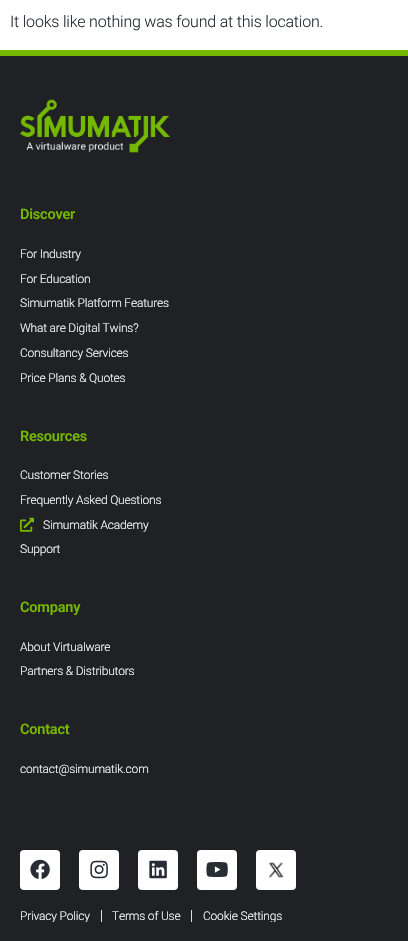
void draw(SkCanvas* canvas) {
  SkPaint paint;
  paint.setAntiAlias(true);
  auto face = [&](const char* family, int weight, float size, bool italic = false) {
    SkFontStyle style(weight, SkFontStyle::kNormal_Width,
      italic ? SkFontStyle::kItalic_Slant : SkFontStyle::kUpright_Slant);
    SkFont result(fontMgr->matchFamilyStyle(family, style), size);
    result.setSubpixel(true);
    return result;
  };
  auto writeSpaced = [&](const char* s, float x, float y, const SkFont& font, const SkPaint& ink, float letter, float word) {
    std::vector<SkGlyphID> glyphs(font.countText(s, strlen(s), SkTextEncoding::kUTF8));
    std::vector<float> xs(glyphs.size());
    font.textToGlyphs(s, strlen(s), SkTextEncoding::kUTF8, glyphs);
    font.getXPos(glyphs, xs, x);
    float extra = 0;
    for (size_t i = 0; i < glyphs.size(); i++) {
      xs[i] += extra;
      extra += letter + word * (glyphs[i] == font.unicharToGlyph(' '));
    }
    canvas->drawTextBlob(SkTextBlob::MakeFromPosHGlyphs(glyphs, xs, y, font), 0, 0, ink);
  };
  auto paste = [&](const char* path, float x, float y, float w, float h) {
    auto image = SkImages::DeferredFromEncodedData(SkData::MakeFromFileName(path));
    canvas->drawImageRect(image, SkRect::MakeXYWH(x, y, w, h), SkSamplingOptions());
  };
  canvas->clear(0xffffffff);
  paint.setColor(0xff202124);
  canvas->drawRect(SkRect::MakeXYWH(0, 56, 408, 885), paint);
  paint.setColor(0xff74b800);
  canvas->drawRect(SkRect::MakeXYWH(0, 50, 408, 6), paint);
  paste("img/1.png", 20, 99, 150, 54);
  paste("img/2.png", 20, 517, 14, 15);
  paint.setColor(0xffffffff);
  canvas->drawRoundRect(SkRect::MakeXYWH(20, 850, 40, 40), 4, 4, paint);
  paste("img/3.png", 30, 859, 20, 20);
  canvas->drawRoundRect(SkRect::MakeXYWH(79, 850, 40, 40), 4, 4, paint);
  paste("img/4.png", 90, 860, 18, 19);
  canvas->drawRoundRect(SkRect::MakeXYWH(138, 850, 40, 40), 4, 4, paint);
  paste("img/5.png", 149, 860, 18, 19);
  canvas->drawRoundRect(SkRect::MakeXYWH(197, 850, 40, 40), 4, 4, paint);
  paste("img/6.png", 206, 862, 22, 15);
  canvas->drawRoundRect(SkRect::MakeXYWH(256, 850, 40, 40), 4, 4, paint);
  paste("img/7.png", 268, 862, 16, 16);
  paint.setColor(0xffdddddd);
  canvas->drawRect(SkRect::MakeXYWH(101, 910, 1, 12), paint);
  canvas->drawRect(SkRect::MakeXYWH(191, 910, 1, 12), paint);
  auto f0 = face("Roboto", 300, 16);
  paint.setColor(0xff282c34);
  writeSpaced("It looks like nothing was found at this location.", 10, 27, f0, paint, -0.2f, 0);
  auto f1 = face("Roboto", 600, 14.5f);
  paint.setColor(0xff74b800);
  writeSpaced("Discover", 20, 219, f1, paint, -0.2f, 0);
  auto f2 = face("Roboto", 300, 12);
  paint.setColor(0xffffffff);
  {
    const struct { const char* s; float x, y; } items[] = {
      {"For Industry", 20, 258},
      {"For Education", 20, 283},
      {"Simumatik Platform Features", 20, 307},
      {"What are Digital Twins?", 20, 332},
      {"Consultancy Services", 20, 357},
      {"Price Plans & Quotes", 20, 382},
    };
    for (auto [s, x, y] : items) {
      writeSpaced(s, x, y, f2, paint, -0.2f, 0);
    }
  }
  paint.setColor(0xff74b800);
  writeSpaced("Resources", 20, 441, f1, paint, -0.2f, 0);
  paint.setColor(0xffffffff);
  {
    const struct { const char* s; float x, y; } items[] = {
      {"Customer Stories", 20, 479},
      {"Frequently Asked Questions", 20, 504},
      {"Simumatik Academy", 43, 529},
      {"Support", 20, 553},
    };
    for (auto [s, x, y] : items) {
      writeSpaced(s, x, y, f2, paint, -0.2f, 0);
    }
  }
  paint.setColor(0xff74b800);
  writeSpaced("Company", 20, 612, f1, paint, -0.2f, 0);
  paint.setColor(0xffffffff);
  writeSpaced("About Virtualware", 20, 651, f2, paint, -0.2f, 0);
  writeSpaced("Partners & Distributors", 20, 675, f2, paint, -0.2f, 0);
  paint.setColor(0xff74b800);
  writeSpaced("Contact", 20, 734, f1, paint, -0.2f, 0);
  paint.setColor(0xffffffff);
  writeSpaced("contact@simumatik.com", 20, 773, f2, paint, -0.2f, 0);
  canvas->save();
  canvas->clipRect(SkRect::MakeXYWH(20, 910, 368, 12));
  writeSpaced("Privacy Policy", 20, 920, f2, paint, -0.2f, 0);
  canvas->restore();
  writeSpaced("Terms of Use", 112, 920, f2, paint, -0.2f, 0);
  canvas->save();
  canvas->clipRect(SkRect::MakeXYWH(20, 910, 368, 12));
  writeSpaced("Cookie Settings", 203, 920, f2, paint, -0.2f, 0);
  canvas->restore();
}
